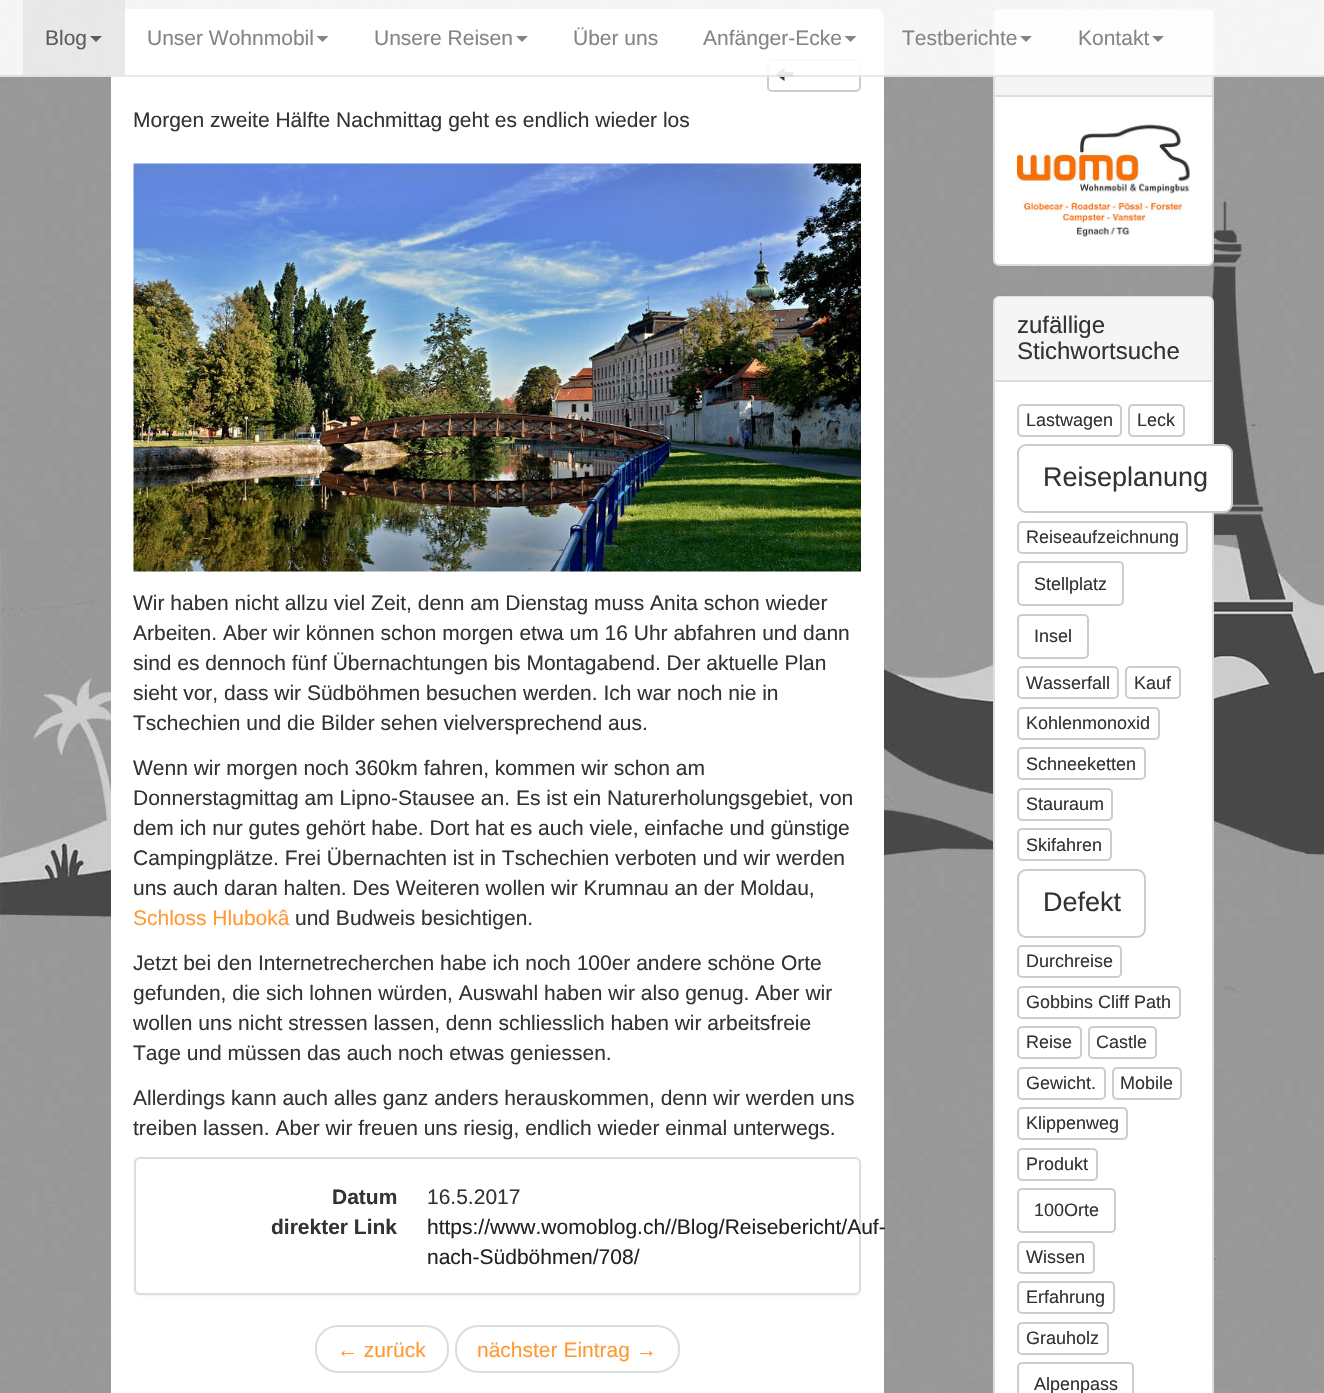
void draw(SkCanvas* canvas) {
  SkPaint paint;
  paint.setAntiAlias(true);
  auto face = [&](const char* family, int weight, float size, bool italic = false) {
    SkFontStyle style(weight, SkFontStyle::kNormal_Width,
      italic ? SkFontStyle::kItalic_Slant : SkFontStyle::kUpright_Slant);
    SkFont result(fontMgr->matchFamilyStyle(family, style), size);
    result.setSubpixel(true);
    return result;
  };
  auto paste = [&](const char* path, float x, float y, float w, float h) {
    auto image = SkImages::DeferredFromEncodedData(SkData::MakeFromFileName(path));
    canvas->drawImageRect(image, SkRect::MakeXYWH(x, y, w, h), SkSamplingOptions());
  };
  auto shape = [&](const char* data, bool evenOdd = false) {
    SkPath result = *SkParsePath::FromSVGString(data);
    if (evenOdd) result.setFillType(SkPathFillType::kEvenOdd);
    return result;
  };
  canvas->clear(0xffffffff);
  paste("img/1.png", 0, 0, 1324, 1393);
  paint.setColor(0xffffffff);
  canvas->drawRoundRect(SkRect::MakeXYWH(111, 9, 773, 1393), 9, 9, paint);
  paint.setStroke(true);
  paint.setStrokeWidth(2);
  paint.setColor(0xffcccccc);
  canvas->drawRoundRect(SkRect::MakeXYWH(768, 60, 92, 31), 4, 4, paint);
  paste("img/2.png", 775, 67, 19, 14);
  paint.setStroke(false);
  paint.setColor(0xffffffff);
  canvas->drawRoundRect(SkRect::MakeXYWH(994, 10, 219, 255), 5, 5, paint);
  paint.setStroke(true);
  paint.setColor(0xffdddddd);
  canvas->drawRoundRect(SkRect::MakeXYWH(994, 10, 219, 255), 5, 5, paint);
  paint.setStroke(false);
  paint.setColor(0xfff5f5f5);
  canvas->drawPath(shape("M1000 11H1207C1210 11 1212 13 1212 16V96H995V16C995 13 997 11 1000 11Z"), paint);
  {
    const struct { float x, y, w, h; SkColor color; } items[] = {
      {0, 0, 1324, 75, 0xe6ffffff},
      {0, 75, 1324, 2, 0xe6e7e7e7},
      {23, 0, 102, 75, 0xe6e7e7e7},
    };
    for (auto [x, y, w, h, color] : items) {
      paint.setColor(color);
      canvas->drawRect(SkRect::MakeXYWH(x, y, w, h), paint);
    }
  }
  paint.setColor(0xff5c5c5c);
  canvas->drawPath(shape("M90 36H102L96 42Z"), paint);
  paint.setColor(0xff858585);
  canvas->drawPath(shape("M316.5 36H328.5L322.5 42Z"), paint);
  canvas->drawPath(shape("M516 36H528L522 42Z"), paint);
  canvas->drawPath(shape("M844.5 36H856.5L850.5 42Z"), paint);
  paint.setColor(0xe6777777);
  canvas->drawPath(shape("M1020 36H1032L1026 42Z"), paint);
  canvas->drawPath(shape("M1152 36H1164L1158 42Z"), paint);
  paste("img/3.png", 133, 163, 728, 409);
  paint.setColor(0x0d000000);
  paint.setMaskFilter(SkMaskFilter::MakeBlur(kNormal_SkBlurStyle, 1));
  canvas->drawRoundRect(SkRect::MakeXYWH(134, 1158, 727, 138), 6, 6, paint);
  paint.setMaskFilter(nullptr);
  paint.setColor(0xffffffff);
  canvas->drawRoundRect(SkRect::MakeXYWH(135, 1158, 725, 136), 5, 5, paint);
  paint.setStroke(true);
  paint.setColor(0xffdddddd);
  canvas->drawRoundRect(SkRect::MakeXYWH(135, 1158, 725, 136), 5, 5, paint);
  canvas->drawRoundRect(SkRect::MakeXYWH(316, 1326, 132, 46), 22, 22, paint);
  canvas->drawRoundRect(SkRect::MakeXYWH(456, 1326, 223, 46), 22, 22, paint);
  paint.setStroke(false);
  canvas->drawRect(SkRect::MakeXYWH(995, 95, 217, 2), paint);
  paste("img/4.png", 1017, 124, 173, 113);
  paint.setColor(0xffffffff);
  canvas->drawRoundRect(SkRect::MakeXYWH(994, 297, 219, 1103), 5, 5, paint);
  paint.setStroke(true);
  paint.setColor(0xffdddddd);
  canvas->drawRoundRect(SkRect::MakeXYWH(994, 297, 219, 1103), 5, 5, paint);
  paint.setStroke(false);
  paint.setColor(0xfff5f5f5);
  canvas->drawPath(shape("M1000 297H1207C1210 297 1212 299 1212 302V381H995V302C995 299 997 297 1000 297Z"), paint);
  paint.setColor(0xffdddddd);
  canvas->drawRect(SkRect::MakeXYWH(995, 380, 217, 2), paint);
  paint.setStroke(true);
  paint.setColor(0xffcccccc);
  canvas->drawRoundRect(SkRect::MakeXYWH(1018, 405, 103, 31), 4, 4, paint);
  canvas->drawRoundRect(SkRect::MakeXYWH(1129, 405, 55, 31), 4, 4, paint);
  paint.setStroke(false);
  paint.setColor(0xffffffff);
  canvas->drawRoundRect(SkRect::MakeXYWH(1018, 445, 214, 67), 8, 8, paint);
  paint.setStroke(true);
  paint.setColor(0xffcccccc);
  canvas->drawRoundRect(SkRect::MakeXYWH(1018, 445, 214, 67), 8, 8, paint);
  canvas->drawRoundRect(SkRect::MakeXYWH(1018, 522, 169, 31), 4, 4, paint);
  canvas->drawRoundRect(SkRect::MakeXYWH(1018, 562, 105, 43), 4, 4, paint);
  canvas->drawRoundRect(SkRect::MakeXYWH(1018, 615, 70, 43), 4, 4, paint);
  canvas->drawRoundRect(SkRect::MakeXYWH(1018, 667, 100, 31), 4, 4, paint);
  canvas->drawRoundRect(SkRect::MakeXYWH(1126, 667, 54, 31), 4, 4, paint);
  canvas->drawRoundRect(SkRect::MakeXYWH(1018, 708, 141, 31), 4, 4, paint);
  canvas->drawRoundRect(SkRect::MakeXYWH(1018, 748, 127, 31), 4, 4, paint);
  canvas->drawRoundRect(SkRect::MakeXYWH(1018, 789, 94, 31), 4, 4, paint);
  canvas->drawRoundRect(SkRect::MakeXYWH(1018, 829, 93, 31), 4, 4, paint);
  canvas->drawRoundRect(SkRect::MakeXYWH(1018, 870, 127, 67), 8, 8, paint);
  canvas->drawRoundRect(SkRect::MakeXYWH(1018, 946, 103, 31), 4, 4, paint);
  canvas->drawRoundRect(SkRect::MakeXYWH(1018, 987, 162, 31), 4, 4, paint);
  canvas->drawRoundRect(SkRect::MakeXYWH(1018, 1027, 63, 31), 4, 4, paint);
  canvas->drawRoundRect(SkRect::MakeXYWH(1089, 1027, 67, 31), 4, 4, paint);
  canvas->drawRoundRect(SkRect::MakeXYWH(1018, 1068, 87, 31), 4, 4, paint);
  canvas->drawRoundRect(SkRect::MakeXYWH(1113, 1068, 68, 31), 4, 4, paint);
  canvas->drawRoundRect(SkRect::MakeXYWH(1018, 1108, 109, 31), 4, 4, paint);
  canvas->drawRoundRect(SkRect::MakeXYWH(1018, 1149, 79, 31), 4, 4, paint);
  canvas->drawRoundRect(SkRect::MakeXYWH(1018, 1189, 97, 43), 4, 4, paint);
  canvas->drawRoundRect(SkRect::MakeXYWH(1018, 1242, 76, 31), 4, 4, paint);
  canvas->drawRoundRect(SkRect::MakeXYWH(1018, 1282, 96, 31), 4, 4, paint);
  canvas->drawRoundRect(SkRect::MakeXYWH(1018, 1323, 90, 31), 4, 4, paint);
  canvas->drawRoundRect(SkRect::MakeXYWH(1018, 1363, 115, 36), 4, 4, paint);
  auto f0 = face("Liberation Sans", 400, 21);
  paint.setStroke(false);
  paint.setColor(0xff5c5c5c);
  canvas->drawString("Blog", 45, 45, f0, paint);
  paint.setColor(0xff858585);
  {
    const struct { const char* s; float x, y; } items[] = {
      {"Unser Wohnmobil", 147, 45},
      {"Unsere Reisen", 374, 45},
      {"Über uns", 573, 45},
      {"Anfänger-Ecke", 703, 45},
      {"Testberichte", 902, 45},
      {"Kontakt", 1078, 45},
    };
    for (auto [s, x, y] : items) {
      canvas->drawString(s, x, y, f0, paint);
    }
  }
  paint.setColor(0xff333333);
  {
    const struct { const char* s; float x, y; } items[] = {
      {"Morgen zweite Hälfte Nachmittag geht es endlich wieder los", 133, 127},
      {"Wir haben nicht allzu viel Zeit, denn am Dienstag muss Anita schon wieder", 133, 610},
      {"Arbeiten. Aber wir können schon morgen etwa um 16 Uhr abfahren und dann", 133, 640},
      {"sind es dennoch fünf Übernachtungen bis Montagabend. Der aktuelle Plan", 133, 670},
      {"sieht vor, dass wir Südböhmen besuchen werden. Ich war noch nie in", 133, 700},
      {"Tschechien und die Bilder sehen vielversprechend aus.", 133, 730},
      {"Wenn wir morgen noch 360km fahren, kommen wir schon am", 133, 775},
      {"Donnerstagmittag am Lipno-Stausee an. Es ist ein Naturerholungsgebiet, von", 133, 805},
      {"dem ich nur gutes gehört habe. Dort hat es auch viele, einfache und günstige", 133, 835},
      {"Campingplätze. Frei Übernachten ist in Tschechien verboten und wir werden", 133, 865},
      {"uns auch daran halten. Des Weiteren wollen wir Krumnau an der Moldau,", 133, 895},
    };
    for (auto [s, x, y] : items) {
      canvas->drawString(s, x, y, f0, paint);
    }
  }
  paint.setColor(0xffff9933);
  canvas->drawString("Schloss Hlubokâ", 133, 925, f0, paint);
  paint.setColor(0xff333333);
  {
    const struct { const char* s; float x, y; } items[] = {
      {"und Budweis besichtigen.", 295, 925},
      {"Jetzt bei den Internetrecherchen habe ich noch 100er andere schöne Orte", 133, 970},
      {"gefunden, die sich lohnen würden, Auswahl haben wir also genug. Aber wir", 133, 1000},
      {"wollen uns nicht stressen lassen, denn schliesslich haben wir arbeitsfreie", 133, 1030},
      {"Tage und müssen das auch noch etwas geniessen.", 133, 1060},
      {"Allerdings kann auch alles ganz anders herauskommen, denn wir werden uns", 133, 1105},
      {"treiben lassen. Aber wir freuen uns riesig, endlich wieder einmal unterwegs.", 133, 1135},
    };
    for (auto [s, x, y] : items) {
      canvas->drawString(s, x, y, f0, paint);
    }
  }
  auto f1 = face("Liberation Sans", 700, 21);
  canvas->drawString("Datum", 332, 1204, f1, paint);
  canvas->drawString("16.5.2017", 427, 1204, f0, paint);
  canvas->drawString("direkter Link", 271, 1234, f1, paint);
  paint.setColor(0xff222222);
  canvas->drawString("https://www.womoblog.ch//Blog/Reisebericht/Auf-", 427, 1234, f0, paint);
  canvas->drawString("nach-Südböhmen/708/", 427, 1264, f0, paint);
  paint.setColor(0xffff9933);
  canvas->drawString("← zurück", 337, 1357, f0, paint);
  canvas->drawString("nächster Eintrag →", 477, 1357, f0, paint);
  auto f2 = face("Liberation Sans", 400, 24);
  paint.setColor(0xff333333);
  canvas->drawString("zufällige", 1017, 333, f2, paint);
  canvas->drawString("Stichwortsuche", 1017, 359, f2, paint);
  auto f3 = face("Liberation Sans", 400, 18);
  canvas->drawString("Lastwagen", 1026, 426, f3, paint);
  canvas->drawString("Leck", 1137, 426, f3, paint);
  auto f4 = face("Liberation Sans", 400, 27);
  canvas->drawString("Reiseplanung", 1043, 486, f4, paint);
  {
    const struct { const char* s; float x, y; } items[] = {
      {"Reiseaufzeichnung", 1026, 543},
      {"Stellplatz", 1034, 590},
      {"Insel", 1034, 642},
      {"Wasserfall", 1026, 689},
      {"Kauf", 1134, 689},
      {"Kohlenmonoxid", 1026, 729},
      {"Schneeketten", 1026, 770},
      {"Stauraum", 1026, 810},
      {"Skifahren", 1026, 851},
    };
    for (auto [s, x, y] : items) {
      canvas->drawString(s, x, y, f3, paint);
    }
  }
  canvas->drawString("Defekt", 1043, 911, f4, paint);
  {
    const struct { const char* s; float x, y; } items[] = {
      {"Durchreise", 1026, 967},
      {"Gobbins Cliff Path", 1026, 1008},
      {"Reise", 1026, 1048},
      {"Castle", 1096, 1048},
      {"Gewicht.", 1026, 1089},
      {"Mobile", 1120, 1089},
      {"Klippenweg", 1026, 1129},
      {"Produkt", 1026, 1170},
      {"100Orte", 1034, 1216},
      {"Wissen", 1026, 1263},
      {"Erfahrung", 1026, 1303},
      {"Grauholz", 1026, 1344},
      {"Alpenpass", 1034, 1390},
    };
    for (auto [s, x, y] : items) {
      canvas->drawString(s, x, y, f3, paint);
    }
  }
}
